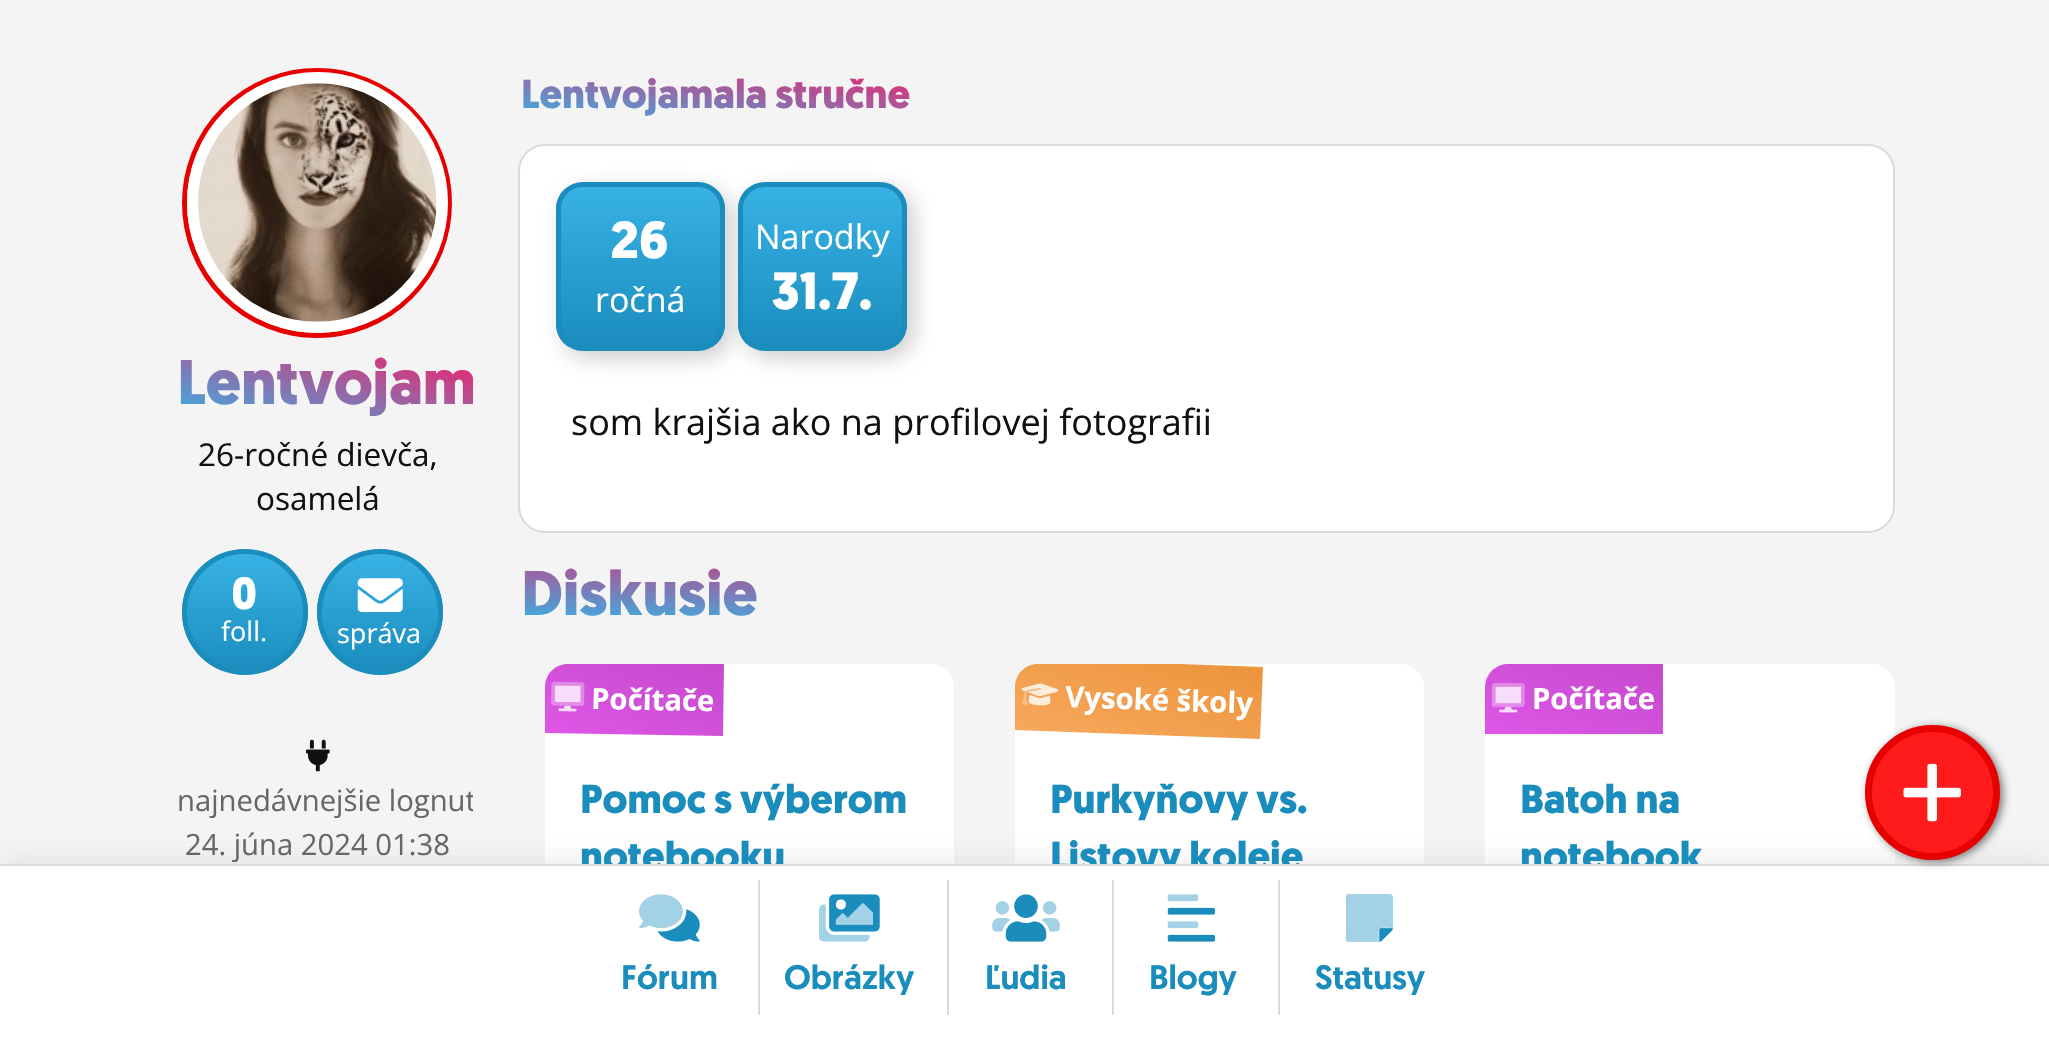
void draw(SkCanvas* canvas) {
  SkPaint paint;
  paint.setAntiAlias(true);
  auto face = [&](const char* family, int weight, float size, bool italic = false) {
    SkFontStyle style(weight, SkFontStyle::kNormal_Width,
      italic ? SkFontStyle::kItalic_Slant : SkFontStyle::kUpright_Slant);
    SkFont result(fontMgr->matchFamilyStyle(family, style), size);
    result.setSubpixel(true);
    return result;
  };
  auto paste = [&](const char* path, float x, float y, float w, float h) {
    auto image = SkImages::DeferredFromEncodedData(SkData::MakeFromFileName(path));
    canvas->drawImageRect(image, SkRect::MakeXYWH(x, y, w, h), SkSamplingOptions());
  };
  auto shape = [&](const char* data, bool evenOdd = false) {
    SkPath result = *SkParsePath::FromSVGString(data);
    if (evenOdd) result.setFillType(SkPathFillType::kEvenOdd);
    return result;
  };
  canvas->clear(0xfff4f4f4);
  paint.setStroke(true);
  paint.setStrokeWidth(5);
  paint.setColor(0xffe70000);
  canvas->drawCircle(317, 203, 132.5f, paint);
  paint.setStroke(false);
  paint.setColor(0xffffffff);
  canvas->drawCircle(317.5f, 202.5f, 125, paint);
  paint.setStroke(true);
  paint.setStrokeWidth(11);
  canvas->drawCircle(317.5f, 202.5f, 125, paint);
  paste("img/1.png", 198, 83, 239, 239);
  canvas->save();
  canvas->clipPath(shape("M245 549C280 549 308 577 308 612C308 647 280 675 245 675C210 675 182 647 182 612C182 577 210 549 245 549Z"), true);
  paint.setStroke(false);
  {
    const SkColor colors[] = {0xff38b1e4, 0xff1a8dbd};
    const float stops[] = {0, 1};
    const SkPoint ends[] = {{245, 554}, {245, 671}};
    paint.setShader(SkGradientShader::MakeLinear(ends, colors, stops, 2, SkTileMode::kClamp));
    paint.setAlpha(255);
  }
  canvas->drawRect(SkRect::MakeXYWH(182, 554, 126, 117), paint);
  canvas->restore();
  paint.setStroke(true);
  paint.setStrokeWidth(5);
  paint.setShader(nullptr);
  paint.setColor(0xff1a8dbd);
  canvas->drawCircle(245, 612, 60.5f, paint);
  canvas->save();
  canvas->clipPath(shape("M380 549C415 549 443 577 443 612C443 647 415 675 380 675C345 675 317 647 317 612C317 577 345 549 380 549Z"), true);
  paint.setStroke(false);
  {
    const SkColor colors[] = {0xff38b1e4, 0xff1a8dbd};
    const float stops[] = {0, 1};
    const SkPoint ends[] = {{380, 554}, {380, 671}};
    paint.setShader(SkGradientShader::MakeLinear(ends, colors, stops, 2, SkTileMode::kClamp));
    paint.setAlpha(255);
  }
  canvas->drawRect(SkRect::MakeXYWH(317, 554, 126, 117), paint);
  canvas->restore();
  paint.setStroke(true);
  paint.setShader(nullptr);
  paint.setColor(0xff1a8dbd);
  canvas->drawCircle(380, 612, 60.5f, paint);
  paste("img/2.png", 357, 578, 46, 34);
  paste("img/3.png", 306, 739, 24, 33);
  paint.setStroke(false);
  paint.setColor(0xffffffff);
  canvas->drawRoundRect(SkRect::MakeXYWH(519, 145, 1375, 387), 26, 26, paint);
  paint.setStroke(true);
  paint.setStrokeWidth(2);
  paint.setColor(0xffdadada);
  canvas->drawRoundRect(SkRect::MakeXYWH(519, 145, 1375, 387), 26, 26, paint);
  paint.setStroke(false);
  paint.setColor(0x80999999);
  paint.setMaskFilter(SkMaskFilter::MakeBlur(kNormal_SkBlurStyle, 11));
  canvas->drawRoundRect(SkRect::MakeXYWH(563, 189, 168, 169), 27, 27, paint);
  paint.setMaskFilter(nullptr);
  canvas->save();
  canvas->clipPath(shape("M583 182H698C713 182 725 194 725 209V324C725 339 713 351 698 351H583C568 351 556 339 556 324V209C556 194 568 182 583 182Z"), true);
  {
    const SkColor colors[] = {0xff38b1e4, 0xff1a8dbd};
    const float stops[] = {0, 1};
    const SkPoint ends[] = {{640, 187}, {640, 347}};
    paint.setShader(SkGradientShader::MakeLinear(ends, colors, stops, 2, SkTileMode::kClamp));
    paint.setAlpha(255);
  }
  canvas->drawRect(SkRect::MakeXYWH(556, 187, 169, 160), paint);
  canvas->restore();
  paint.setStroke(true);
  paint.setStrokeWidth(5);
  paint.setShader(nullptr);
  paint.setColor(0xff1a8dbd);
  canvas->drawRoundRect(SkRect::MakeXYWH(558.5f, 184.5f, 164, 164), 24.5f, 24.5f, paint);
  paint.setStroke(false);
  paint.setColor(0x80999999);
  paint.setMaskFilter(SkMaskFilter::MakeBlur(kNormal_SkBlurStyle, 11));
  canvas->drawRoundRect(SkRect::MakeXYWH(745, 189, 169, 169), 27, 27, paint);
  paint.setMaskFilter(nullptr);
  canvas->save();
  canvas->clipPath(shape("M765 182H880C895 182 907 194 907 209V324C907 339 895 351 880 351H765C750 351 738 339 738 324V209C738 194 750 182 765 182Z"), true);
  {
    const SkColor colors[] = {0xff38b1e4, 0xff1a8dbd};
    const float stops[] = {0, 1};
    const SkPoint ends[] = {{822, 187}, {822, 347}};
    paint.setShader(SkGradientShader::MakeLinear(ends, colors, stops, 2, SkTileMode::kClamp));
    paint.setAlpha(255);
  }
  canvas->drawRect(SkRect::MakeXYWH(738, 187, 169, 160), paint);
  canvas->restore();
  paint.setStroke(true);
  paint.setShader(nullptr);
  paint.setColor(0xff1a8dbd);
  canvas->drawRoundRect(SkRect::MakeXYWH(740.5f, 184.5f, 164, 164), 24.5f, 24.5f, paint);
  paint.setStroke(false);
  paint.setColor(0xffffffff);
  canvas->drawPath(shape("M568 664H931C943.5 664 954 674.5 954 687V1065H545V687C545 674.5 555.5 664 568 664Z"), paint);
  {
    const SkColor colors[] = {0xccb61bc0, 0xccd62de1};
    const float stops[] = {0, 1};
    const SkPoint ends[] = {{658, 636}, {607, 760}};
    paint.setShader(SkGradientShader::MakeLinear(ends, colors, stops, 2, SkTileMode::kClamp));
    paint.setAlpha(255);
  }
  canvas->drawPath(shape("M568 664C555 664 545 674 545 687V733L723 736L724 664Z"), paint);
  paste("img/5.png", 554, 685, 27, 27);
  paste("img/4.png", 551, 681, 34, 25);
  paint.setShader(nullptr);
  paint.setColor(0xffffffff);
  canvas->drawPath(shape("M1038 664H1401C1413.5 664 1424 674.5 1424 687V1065H1015V687C1015 674.5 1025.5 664 1038 664Z"), paint);
  {
    const SkColor colors[] = {0xcce8790c, 0xccf49333};
    const float stops[] = {0, 1};
    const SkPoint ends[] = {{1158, 632}, {1115, 764}};
    paint.setShader(SkGradientShader::MakeLinear(ends, colors, stops, 2, SkTileMode::kClamp));
    paint.setAlpha(255);
  }
  canvas->drawPath(shape("M1038 664H1180L1263 667L1260 739L1015 730V687C1015 674 1025 664 1038 664Z"), paint);
  paste("img/6.png", 1021, 683, 38, 23);
  paste("img/7.png", 1022, 688, 19, 17);
  paint.setShader(nullptr);
  paint.setColor(0xffffffff);
  canvas->drawPath(shape("M1508 664H1872C1884.5 664 1895 674.5 1895 687V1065H1485V687C1485 674.5 1495.5 664 1508 664Z"), paint);
  {
    const SkColor colors[] = {0xccb61bc0, 0xccd62de1};
    const float stops[] = {0, 1};
    const SkPoint ends[] = {{1598, 635}, {1548, 760}};
    paint.setShader(SkGradientShader::MakeLinear(ends, colors, stops, 2, SkTileMode::kClamp));
    paint.setAlpha(255);
  }
  canvas->drawPath(shape("M1508 664H1663V734H1485V687C1485 674.5 1495.5 664 1508 664Z"), paint);
  paste("img/9.png", 1495, 686, 26, 27);
  paste("img/8.png", 1491, 683, 34, 24);
  paint.setShader(nullptr);
  paint.setColor(0x33aaaaaa);
  paint.setMaskFilter(SkMaskFilter::MakeBlur(kNormal_SkBlurStyle, 11));
  canvas->drawRect(SkRect::MakeXYWH(0, 857, 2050, 180), paint);
  paint.setMaskFilter(nullptr);
  canvas->save();
  canvas->clipRect(SkRect::MakeXYWH(164, 23, 309, 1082));
  auto f0 = face("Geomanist", 700, 63);
  {
    const SkColor colors[] = {0xfff31e69, 0xff38b1e4};
    const float stops[] = {0, 1};
    const SkPoint ends[] = {{334, 319}, {301, 450}};
    paint.setShader(SkGradientShader::MakeLinear(ends, colors, stops, 2, SkTileMode::kClamp));
    paint.setAlpha(255);
  }
  canvas->drawString("Lentvojam", 177, 404, f0, paint);
  canvas->restore();
  auto f1 = face("Open Sans", 400, 31.5f);
  paint.setShader(nullptr);
  paint.setColor(0xff111111);
  canvas->drawString("26-ročné dievča,", 198, 466, f1, paint);
  canvas->drawString("osamelá", 256, 510, f1, paint);
  auto f2 = face("Geomanist", 700, 45);
  paint.setColor(0xffffffff);
  canvas->drawString("0", 231, 609, f2, paint);
  auto f3 = face("Open Sans", 400, 27);
  canvas->drawString("foll.", 221, 641, f3, paint);
  canvas->drawString("správa", 337, 643, f3, paint);
  canvas->save();
  canvas->clipRect(SkRect::MakeXYWH(164, 23, 309, 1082));
  auto f4 = face("Open Sans", 400, 29.25f);
  paint.setColor(0xff676767);
  canvas->drawString("najnedávnejšie lognut", 177, 811, f4, paint);
  canvas->restore();
  canvas->drawString("24. júna 2024 01:38", 185, 855, f4, paint);
  auto f5 = face("Geomanist", 700, 40.5f);
  {
    const SkColor colors[] = {0xfff31e69, 0xff38b1e4};
    const float stops[] = {0, 1};
    const SkPoint ends[] = {{722, 46}, {710, 143}};
    paint.setShader(SkGradientShader::MakeLinear(ends, colors, stops, 2, SkTileMode::kClamp));
    paint.setAlpha(255);
  }
  canvas->drawString("Lentvojamala stručne", 521, 108, f5, paint);
  auto f6 = face("Geomanist", 700, 52);
  paint.setShader(nullptr);
  paint.setColor(0xffffffff);
  canvas->drawString("26", 610, 258, f6, paint);
  auto f7 = face("Open Sans", 400, 34);
  canvas->drawString("ročná", 595, 312, f7, paint);
  canvas->drawString("Narodky", 755, 249, f7, paint);
  canvas->drawString("31.7.", 771, 309, f6, paint);
  auto f8 = face("Open Sans", 400, 36);
  paint.setColor(0xff111111);
  canvas->drawString("som krajšia ako na profilovej fotografii", 571, 435, f8, paint);
  {
    const SkColor colors[] = {0xfff31e69, 0xff38b1e4};
    const float stops[] = {0, 1};
    const SkPoint ends[] = {{1210, 545}, {1207, 644}};
    paint.setShader(SkGradientShader::MakeLinear(ends, colors, stops, 2, SkTileMode::kClamp));
    paint.setAlpha(255);
  }
  canvas->drawString("Diskusie", 521, 615, f0, paint);
  auto f9 = face("Open Sans", 700, 29.25f);
  paint.setShader(nullptr);
  paint.setColor(0xffffffff);
  canvas->save();
  canvas->rotate(1, 591, 709);
  canvas->drawString("Počítače", 591, 709, f9, paint);
  canvas->restore();
  paint.setColor(0xff1a8dbd);
  canvas->drawString("Pomoc s výberom", 580, 813, f5, paint);
  canvas->drawString("notebooku", 580, 870, f5, paint);
  paint.setColor(0xffffffff);
  canvas->save();
  canvas->rotate(2, 1065, 707);
  canvas->drawString("Vysoké školy", 1065, 707, f9, paint);
  canvas->restore();
  paint.setColor(0xff1a8dbd);
  canvas->drawString("Purkyňovy vs.", 1050, 813, f5, paint);
  canvas->drawString("Listovy koleje", 1050, 870, f5, paint);
  paint.setColor(0xffffffff);
  canvas->drawString("Počítače", 1532, 709, f9, paint);
  paint.setColor(0xff1a8dbd);
  canvas->drawString("Batoh na", 1520, 813, f5, paint);
  canvas->drawString("notebook", 1520, 870, f5, paint);
  paint.setColor(0xffffffff);
  canvas->drawRect(SkRect::MakeXYWH(0, 866, 2049, 176), paint);
  paint.setColor(0xffdadada);
  canvas->drawRect(SkRect::MakeXYWH(0, 864, 2049, 2), paint);
  paint.setColor(0xff787878);
  paint.setMaskFilter(SkMaskFilter::MakeBlur(kNormal_SkBlurStyle, 4.5f));
  canvas->drawRoundRect(SkRect::MakeXYWH(1868, 727, 135, 135), 67.5f, 67.5f, paint);
  paint.setMaskFilter(nullptr);
  paint.setColor(0xffff1b1b);
  canvas->drawCircle(1932.5f, 792.5f, 64, paint);
  paint.setStroke(true);
  paint.setStrokeWidth(7);
  paint.setColor(0xffe70000);
  canvas->drawCircle(1932.5f, 792.5f, 64, paint);
  paste("img/10.png", 1903, 763, 58, 59);
  paste("img/12.png", 657, 909, 43, 33);
  paste("img/11.png", 639, 894, 44, 35);
  auto f10 = face("Geomanist", 500, 34);
  paint.setStroke(false);
  paint.setColor(0xff1a8dbd);
  canvas->drawString("Fórum", 621, 989, f10, paint);
  paint.setColor(0xffdadada);
  canvas->drawRect(SkRect::MakeXYWH(758, 880, 2, 135), paint);
  paste("img/13.png", 829, 894, 51, 38);
  paste("img/14.png", 819, 903, 54, 39);
  paint.setColor(0xff1a8dbd);
  canvas->drawString("Obrázky", 784, 989, f10, paint);
  paint.setColor(0xffdadada);
  canvas->drawRect(SkRect::MakeXYWH(947, 880, 2, 135), paint);
  paste("img/15.png", 1005, 894, 42, 48);
  paste("img/16.png", 992, 901, 68, 31);
  paint.setColor(0xff1a8dbd);
  canvas->drawString("Ľudia", 985, 989, f10, paint);
  paint.setColor(0xffdadada);
  canvas->drawRect(SkRect::MakeXYWH(1112, 880, 2, 135), paint);
  paste("img/18.png", 1167, 907, 48, 35);
  paste("img/17.png", 1167, 894, 32, 35);
  paint.setColor(0xff1a8dbd);
  canvas->drawString("Blogy", 1149, 989, f10, paint);
  paint.setColor(0xffdadada);
  canvas->drawRect(SkRect::MakeXYWH(1278, 880, 2, 135), paint);
  paste("img/19.png", 1379, 928, 14, 14);
  paint.setColor(0x661a8dbd);
  canvas->drawPath(shape("M1393 928C1376 928 1379 925 1379 942H1353C1344 942 1346 942 1346 932V904C1346 893 1344 894 1355 894H1383C1393 894 1393 893 1393 902Z"), paint);
  paint.setColor(0xff1a8dbd);
  canvas->drawString("Statusy", 1315, 989, f10, paint);
}
